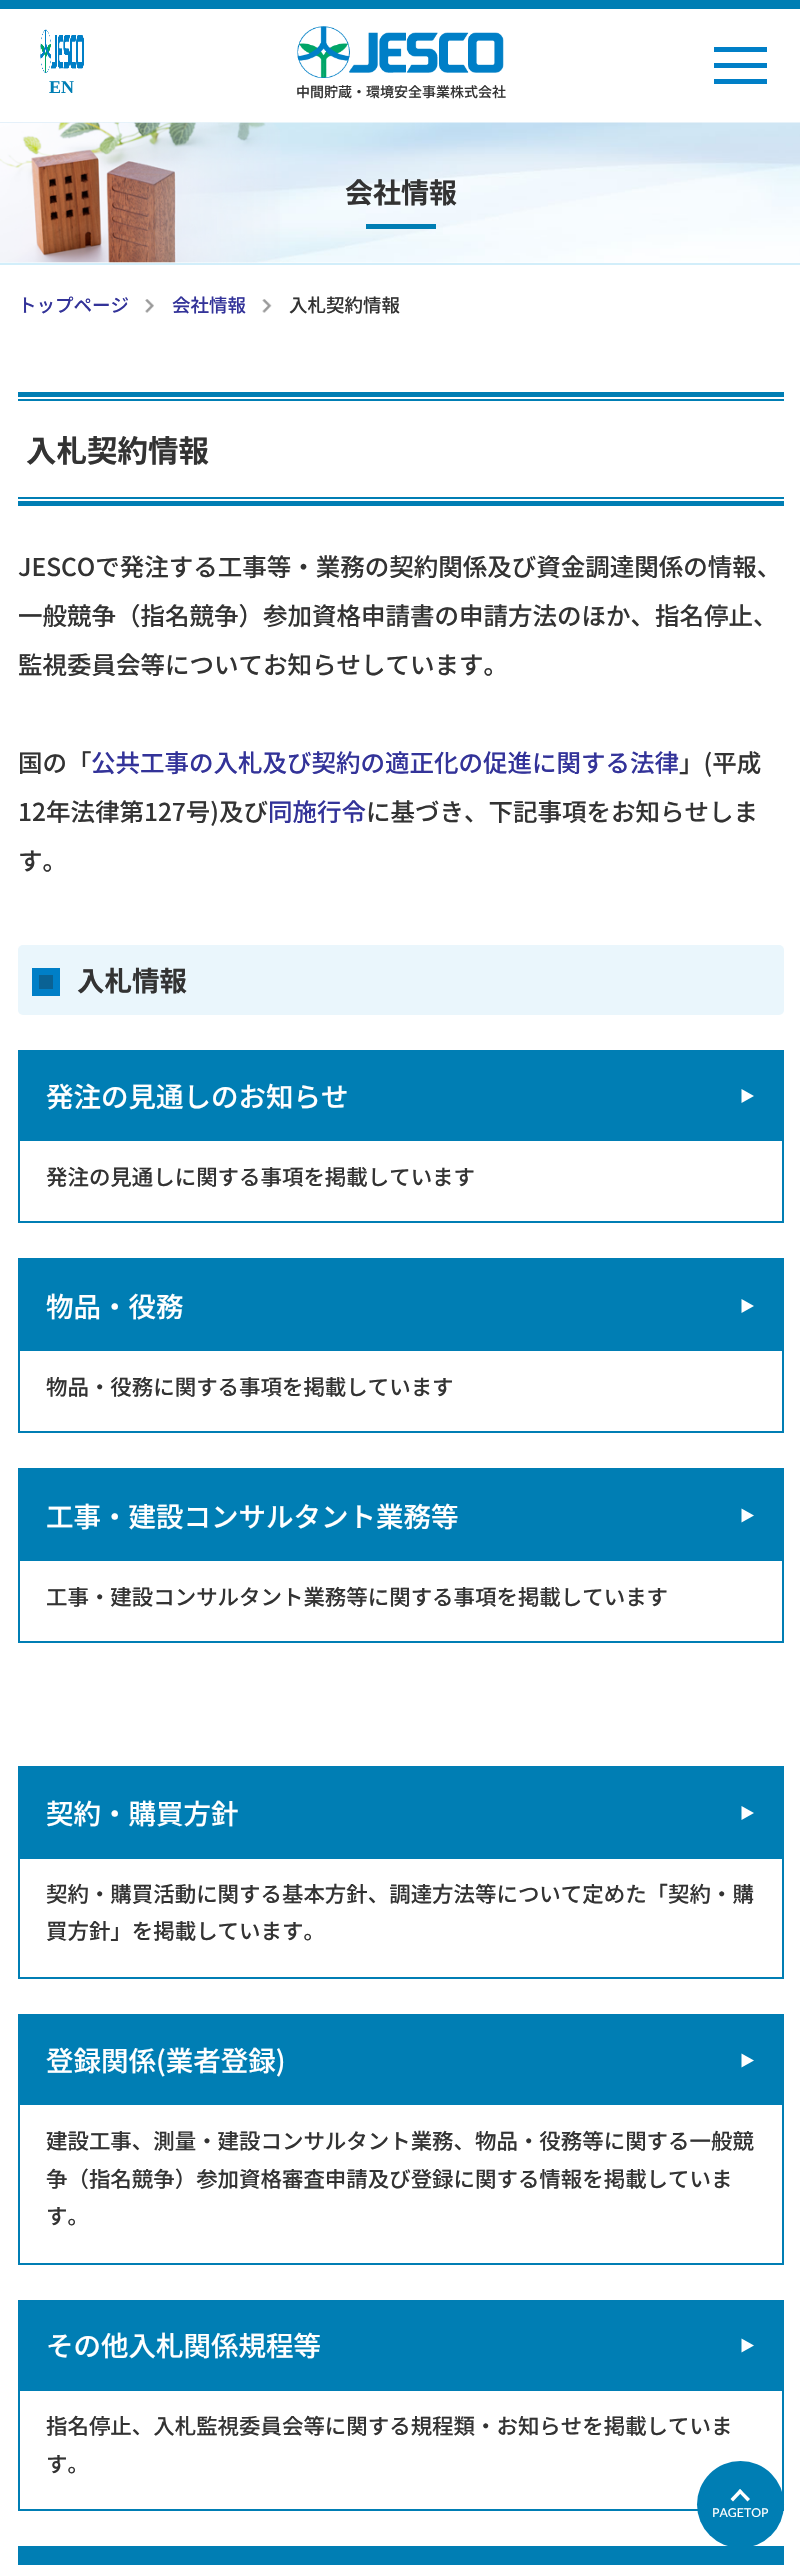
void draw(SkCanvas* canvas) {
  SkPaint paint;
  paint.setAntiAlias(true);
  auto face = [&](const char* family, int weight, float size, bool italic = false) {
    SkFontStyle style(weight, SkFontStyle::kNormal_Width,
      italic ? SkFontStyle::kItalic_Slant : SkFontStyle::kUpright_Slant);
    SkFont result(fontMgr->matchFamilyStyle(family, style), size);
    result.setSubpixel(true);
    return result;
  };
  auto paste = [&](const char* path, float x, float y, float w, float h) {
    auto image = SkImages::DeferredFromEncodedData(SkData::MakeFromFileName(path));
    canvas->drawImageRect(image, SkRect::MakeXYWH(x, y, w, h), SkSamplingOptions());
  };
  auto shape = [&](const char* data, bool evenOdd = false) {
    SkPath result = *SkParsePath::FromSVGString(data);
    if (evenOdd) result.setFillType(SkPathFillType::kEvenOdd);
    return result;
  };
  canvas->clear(0xffffffff);
  {
    const struct { float x, y, w, h; SkColor color; } items[] = {
      {0, 0, 800, 9, 0xff007eb4},
      {714, 47, 53, 5, 0xff007fc7},
      {714, 63, 53, 5, 0xff007fc7},
      {714, 79, 53, 5, 0xff007fc7},
    };
    for (auto [x, y, w, h, color] : items) {
      paint.setColor(color);
      canvas->drawRect(SkRect::MakeXYWH(x, y, w, h), paint);
    }
  }
  paste("img/1.png", 40, 29, 44, 44);
  paste("img/2.png", 297, 26, 207, 52);
  paste("img/3.png", 0, 122, 800, 141);
  paint.setColor(0xffd2eefa);
  canvas->drawRect(SkRect::MakeXYWH(0, 263, 800, 2), paint);
  paste("img/4.png", 0, 122, 280, 141);
  paint.setColor(0xff007eb4);
  canvas->drawRect(SkRect::MakeXYWH(366, 224, 70, 5), paint);
  paste("img/5.png", 145, 299, 9, 14);
  paste("img/6.png", 262, 299, 10, 14);
  {
    const struct { float x, y, w, h; SkColor color; } items[] = {
      {18, 392, 766, 5, 0xff007eb4},
      {18, 501, 766, 5, 0xff007eb4},
      {18, 399, 766, 2, 0xff007eb4},
      {18, 497, 766, 2, 0xff007eb4},
    };
    for (auto [x, y, w, h, color] : items) {
      paint.setColor(color);
      canvas->drawRect(SkRect::MakeXYWH(x, y, w, h), paint);
    }
  }
  paint.setColor(0xffeaf6fc);
  canvas->drawRoundRect(SkRect::MakeXYWH(18, 945, 766, 70), 5, 5, paint);
  paint.setColor(0xff0a6294);
  canvas->drawRect(SkRect::MakeXYWH(35.5f, 971.5f, 21, 21), paint);
  paint.setStroke(true);
  paint.setStrokeWidth(7);
  paint.setColor(0xff007fc7);
  canvas->drawRect(SkRect::MakeXYWH(35.5f, 971.5f, 21, 21), paint);
  paint.setStrokeWidth(2);
  paint.setColor(0xff007eb4);
  canvas->drawRect(SkRect::MakeXYWH(19, 1051, 764, 171), paint);
  paint.setStroke(false);
  canvas->drawRect(SkRect::MakeXYWH(20, 1052, 762, 89), paint);
  paint.setColor(0xffffffff);
  canvas->drawPath(shape("M741.5 1103V1089L754 1096Z"), paint);
  paint.setStroke(true);
  paint.setColor(0xff007eb4);
  canvas->drawRect(SkRect::MakeXYWH(19, 1259, 764, 173), paint);
  paint.setStroke(false);
  canvas->drawRect(SkRect::MakeXYWH(20, 1260, 762, 91), paint);
  paint.setColor(0xffffffff);
  canvas->drawPath(shape("M741.5 1313V1299L754 1306Z"), paint);
  paint.setStroke(true);
  paint.setColor(0xff007eb4);
  canvas->drawRect(SkRect::MakeXYWH(19, 1469, 764, 173), paint);
  paint.setStroke(false);
  canvas->drawRect(SkRect::MakeXYWH(20, 1470, 762, 91), paint);
  paint.setColor(0xffffffff);
  canvas->drawPath(shape("M741.5 1522.5V1508.5L754 1515.5Z"), paint);
  paint.setStroke(true);
  paint.setColor(0xff007eb4);
  canvas->drawRect(SkRect::MakeXYWH(19, 1767, 764, 211), paint);
  paint.setStroke(false);
  canvas->drawRect(SkRect::MakeXYWH(20, 1768, 762, 91), paint);
  paint.setColor(0xffffffff);
  canvas->drawPath(shape("M741.5 1820V1806L754 1813Z"), paint);
  paint.setStroke(true);
  paint.setColor(0xff007eb4);
  canvas->drawRect(SkRect::MakeXYWH(19, 2015, 764, 249), paint);
  paint.setStroke(false);
  canvas->drawRect(SkRect::MakeXYWH(20, 2016, 762, 89), paint);
  paint.setColor(0xffffffff);
  canvas->drawPath(shape("M741.5 2067.5V2053.5L754 2060.5Z"), paint);
  paint.setStroke(true);
  paint.setColor(0xff007eb4);
  canvas->drawRect(SkRect::MakeXYWH(19, 2301, 764, 209), paint);
  paint.setStroke(false);
  canvas->drawRect(SkRect::MakeXYWH(20, 2302, 762, 89), paint);
  paint.setColor(0xffffffff);
  canvas->drawPath(shape("M741.5 2352.5V2338.5L754 2345.5Z"), paint);
  paint.setStroke(true);
  paint.setColor(0xff007eb4);
  canvas->drawRect(SkRect::MakeXYWH(19, 2547, 764, 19), paint);
  paint.setStroke(false);
  canvas->drawRect(SkRect::MakeXYWH(20, 2548, 762, 17), paint);
  canvas->drawCircle(740.5f, 2504.5f, 43.5f, paint);
  paint.setColor(0xffffffff);
  canvas->drawPath(shape("M730.5 2499L740 2489L742.5 2491.5L733 2501.5Z"), paint);
  canvas->drawPath(shape("M738 2491.5L740 2489L750 2499L747.5 2501.5Z"), paint);
  auto f0 = face("Liberation Serif", 700, 18);
  paint.setColor(0xff007eb4);
  canvas->drawString("EN", 49, 93, f0, paint);
  auto f1 = face("Noto Sans JP", 500, 14);
  paint.setColor(0xff333333);
  canvas->drawString("中間貯蔵・環境安全事業株式会社", 296, 97, f1, paint);
  auto f2 = face("Noto Sans JP", 700, 28);
  canvas->drawString("会社情報", 345, 203, f2, paint);
  auto f3 = face("Noto Sans JP", 500, 18.5f);
  paint.setColor(0xff333399);
  canvas->drawString("トップページ", 18, 312, f3, paint);
  canvas->drawString("会社情報", 172, 312, f3, paint);
  paint.setColor(0xff333333);
  canvas->drawString("入札契約情報", 289, 312, f3, paint);
  auto f4 = face("Noto Sans JP", 700, 30.5f);
  canvas->drawString("入札契約情報", 26, 462, f4, paint);
  auto f5 = face("Noto Sans JP", 500, 24.5f);
  {
    const struct { const char* s; float x, y; } items[] = {
      {"JESCOで発注する工事等・業務の契約関係及び資金調達関係の情報、", 18, 576},
      {"一般競争（指名競争）参加資格申請書の申請方法のほか、指名停止、", 18, 625},
      {"監視委員会等についてお知らせしています。", 18, 674},
      {"国の「", 18, 772},
    };
    for (auto [s, x, y] : items) {
      canvas->drawString(s, x, y, f5, paint);
    }
  }
  paint.setColor(0xff333399);
  canvas->drawString("公共工事の入札及び契約の適正化の促進に関する法律", 91, 772, f5, paint);
  paint.setColor(0xff333333);
  canvas->drawString("」(平成", 679, 772, f5, paint);
  canvas->drawString("12年法律第127号)及び", 18, 821, f5, paint);
  paint.setColor(0xff333399);
  canvas->drawString("同施行令", 268, 821, f5, paint);
  paint.setColor(0xff333333);
  canvas->drawString("に基づき、下記事項をお知らせしま", 366, 821, f5, paint);
  canvas->drawString("す。", 18, 870, f5, paint);
  auto f6 = face("Noto Sans JP", 700, 27.5f);
  canvas->drawString("入札情報", 77, 991, f6, paint);
  auto f7 = face("Noto Sans JP", 500, 27.5f);
  paint.setColor(0xffffffff);
  canvas->drawString("発注の見通しのお知らせ", 46, 1107, f7, paint);
  auto f8 = face("Noto Sans JP", 500, 21.45f);
  paint.setColor(0xff333333);
  canvas->drawString("発注の見通しに関する事項を掲載しています", 46, 1185, f8, paint);
  paint.setColor(0xffffffff);
  canvas->drawString("物品・役務", 46, 1317, f7, paint);
  paint.setColor(0xff333333);
  canvas->drawString("物品・役務に関する事項を掲載しています", 46, 1395, f8, paint);
  paint.setColor(0xffffffff);
  canvas->drawString("工事・建設コンサルタント業務等", 46, 1527, f7, paint);
  paint.setColor(0xff333333);
  canvas->drawString("工事・建設コンサルタント業務等に関する事項を掲載しています", 46, 1605, f8, paint);
  paint.setColor(0xffffffff);
  canvas->drawString("契約・購買方針", 46, 1824, f7, paint);
  paint.setColor(0xff333333);
  canvas->drawString("契約・購買活動に関する基本方針、調達方法等について定めた「契約・購", 46, 1902, f8, paint);
  canvas->drawString("買方針」を掲載しています。", 46, 1939, f8, paint);
  paint.setColor(0xffffffff);
  canvas->drawString("登録関係(業者登録)", 46, 2071, f7, paint);
  paint.setColor(0xff333333);
  {
    const struct { const char* s; float x, y; } items[] = {
      {"建設工事、測量・建設コンサルタント業務、物品・役務等に関する一般競", 46, 2149},
      {"争（指名競争）参加資格審査申請及び登録に関する情報を掲載していま", 46, 2187},
      {"す。", 46, 2224},
    };
    for (auto [s, x, y] : items) {
      canvas->drawString(s, x, y, f8, paint);
    }
  }
  paint.setColor(0xffffffff);
  canvas->drawString("その他入札関係規程等", 46, 2356, f7, paint);
  paint.setColor(0xff333333);
  canvas->drawString("指名停止、入札監視委員会等に関する規程類・お知らせを掲載していま", 46, 2434, f8, paint);
  canvas->drawString("す。", 46, 2472, f8, paint);
  auto f9 = face("Lato", 400, 12.25f);
  paint.setColor(0xffffffff);
  canvas->drawString("PAGETOP", 712, 2517, f9, paint);
}
